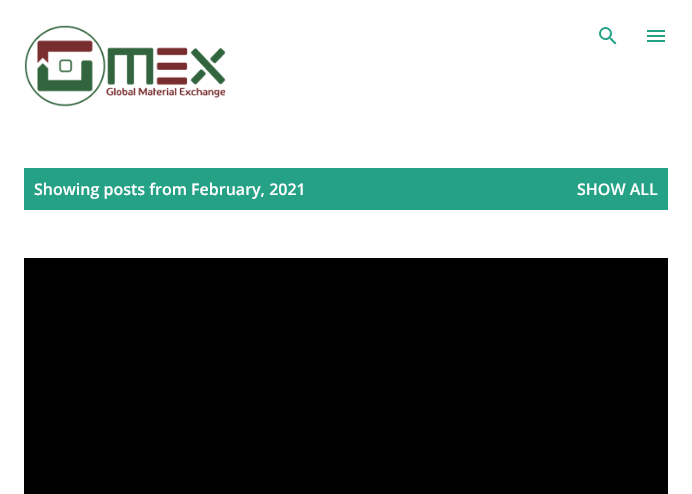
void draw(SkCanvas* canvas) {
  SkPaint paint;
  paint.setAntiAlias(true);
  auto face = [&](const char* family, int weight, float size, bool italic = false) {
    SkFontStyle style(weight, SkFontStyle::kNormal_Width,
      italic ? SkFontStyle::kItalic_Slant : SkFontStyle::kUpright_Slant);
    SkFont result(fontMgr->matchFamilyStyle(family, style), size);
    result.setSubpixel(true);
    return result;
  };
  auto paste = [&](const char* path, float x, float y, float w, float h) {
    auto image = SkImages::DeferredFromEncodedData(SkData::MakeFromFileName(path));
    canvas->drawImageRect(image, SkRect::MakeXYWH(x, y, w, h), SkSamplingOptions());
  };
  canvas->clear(0xffffffff);
  paste("img/1.png", 24, 25, 202, 82);
  paste("img/2.png", 599, 27, 18, 18);
  paste("img/3.png", 647, 30, 18, 12);
  paint.setColor(0xff25a186);
  canvas->drawRect(SkRect::MakeXYWH(24, 168, 644, 42), paint);
  paint.setColor(0xff000000);
  canvas->drawRect(SkRect::MakeXYWH(24, 258, 644, 236), paint);
  auto f0 = face("Open Sans", 600, 16);
  paint.setColor(0xffffffff);
  canvas->drawString("Showing posts from February, 2021", 34, 195, f0, paint);
  canvas->drawString("SHOW ALL", 577, 195, f0, paint);
}
